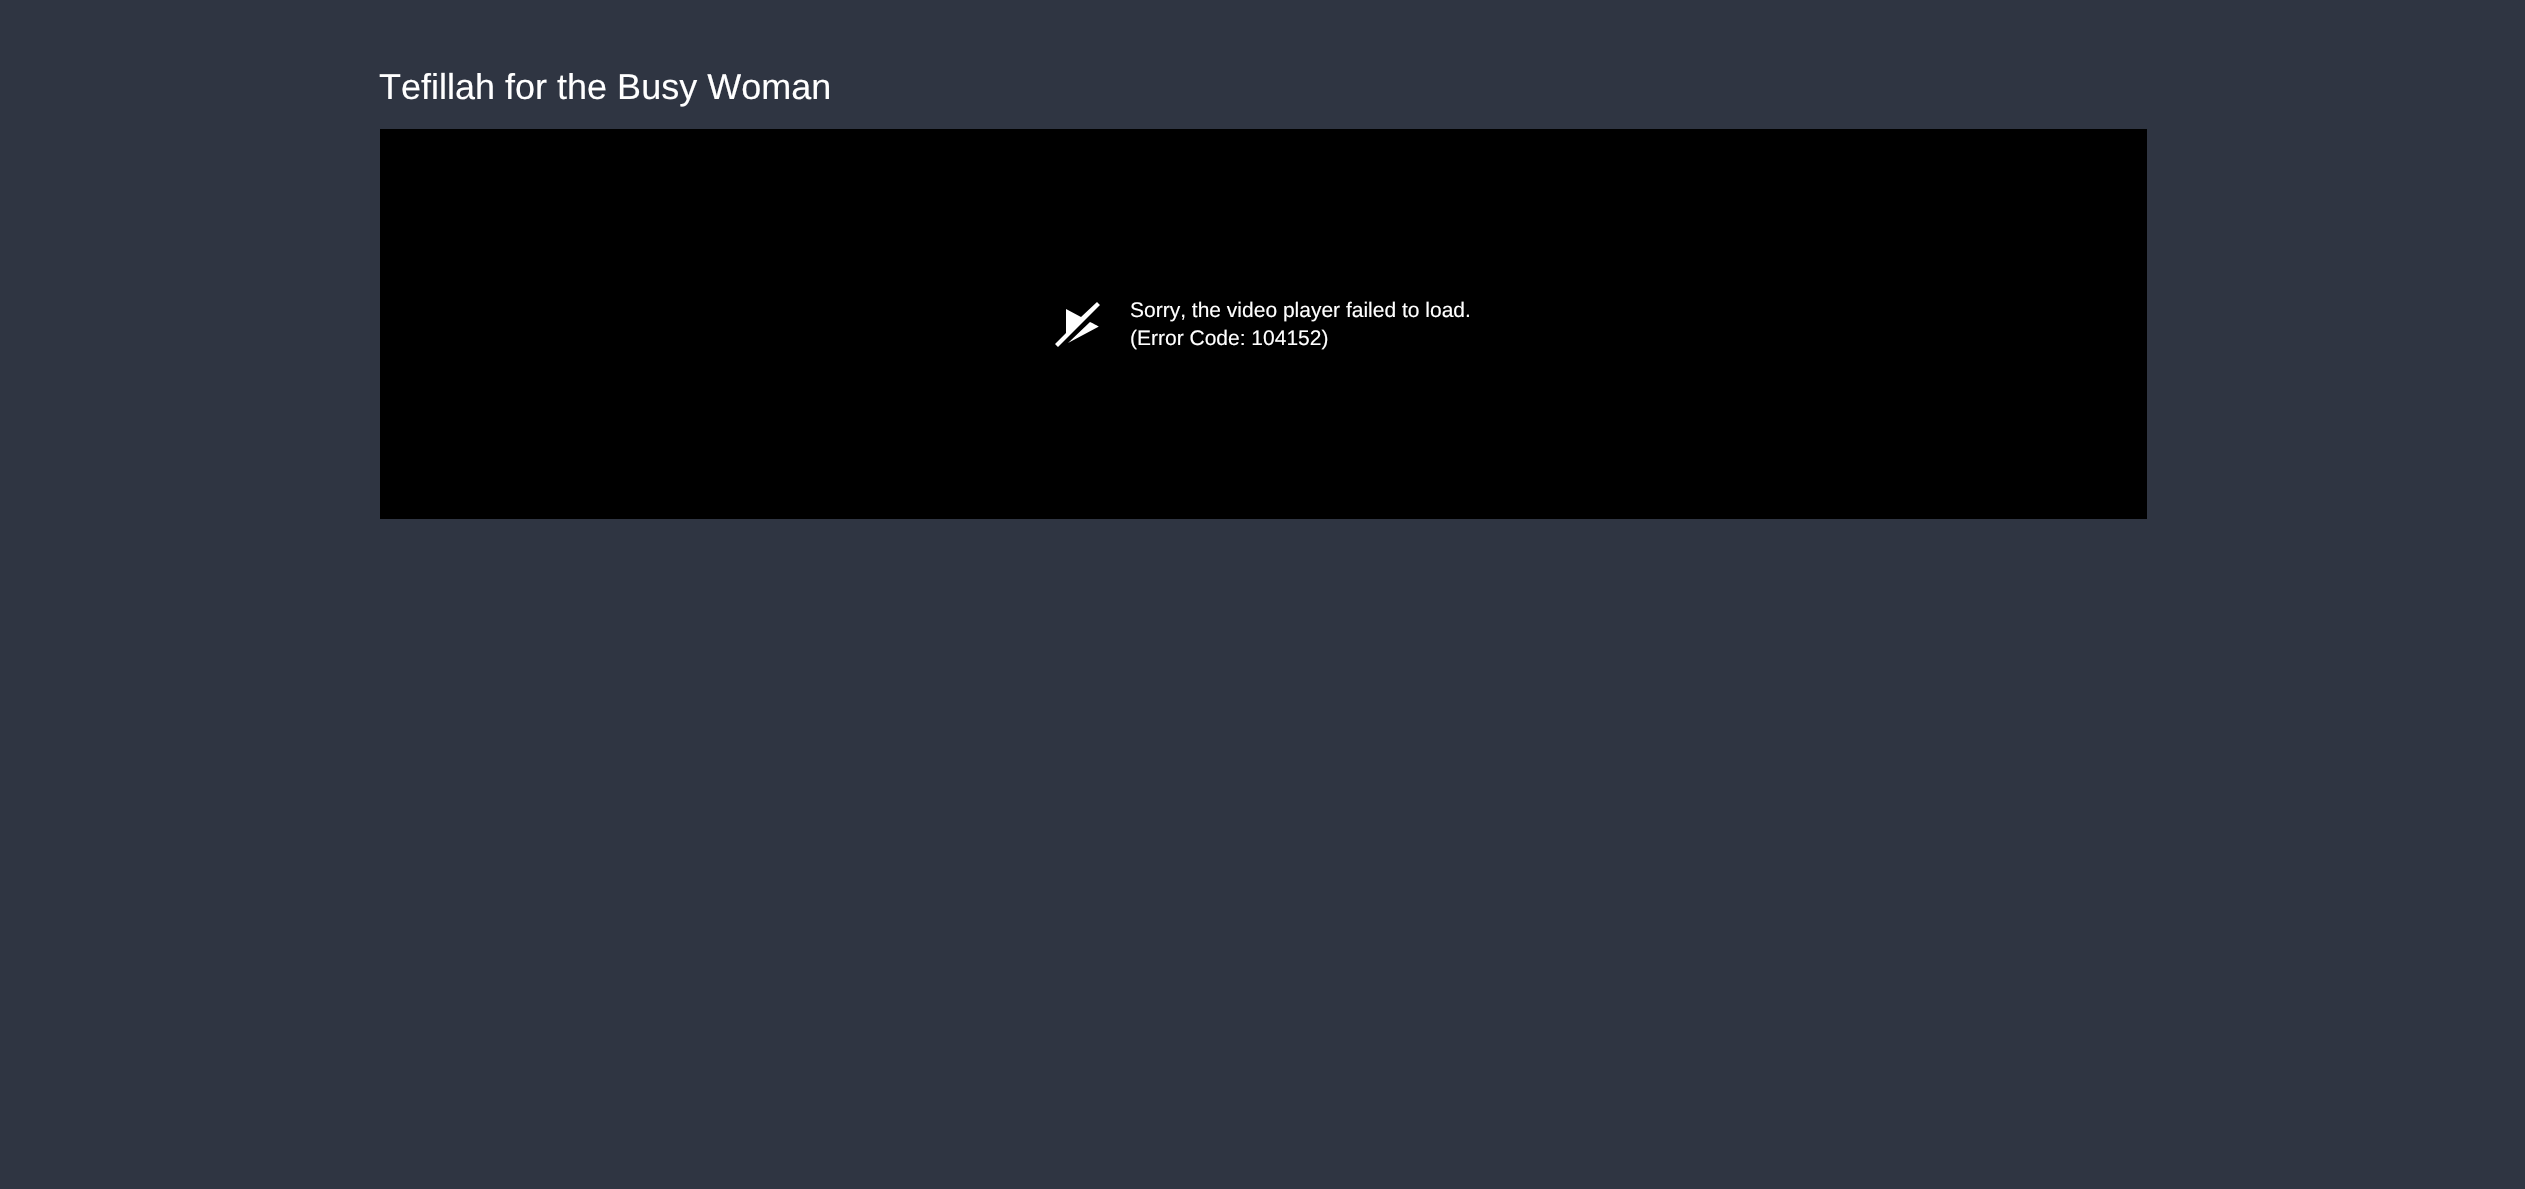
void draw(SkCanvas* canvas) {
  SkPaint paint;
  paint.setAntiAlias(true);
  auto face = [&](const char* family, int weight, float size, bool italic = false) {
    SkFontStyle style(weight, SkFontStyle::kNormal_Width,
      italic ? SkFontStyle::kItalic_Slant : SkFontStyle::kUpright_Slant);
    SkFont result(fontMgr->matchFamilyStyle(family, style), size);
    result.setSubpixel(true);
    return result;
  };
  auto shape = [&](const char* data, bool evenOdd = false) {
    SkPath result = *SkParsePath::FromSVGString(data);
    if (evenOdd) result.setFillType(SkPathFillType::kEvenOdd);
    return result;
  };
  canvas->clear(0xff2f3542);
  paint.setColor(0xff000000);
  canvas->drawRect(SkRect::MakeXYWH(380, 129, 1767, 390), paint);
  paint.setColor(0xffffffff);
  canvas->drawPath(shape("M1098 327L1068 343L1090 322C1098 326 1100 327 1098 327ZM1097 302L1081 317L1066 309V333L1055 344L1058 347L1100 305Z"), paint);
  auto f0 = face("Liberation Sans", 400, 36);
  canvas->drawString("Tefillah for the Busy Woman", 379, 99, f0, paint);
  auto f1 = face("Liberation Sans", 400, 21);
  canvas->drawString("Sorry, the video player failed to load.", 1130, 317, f1, paint);
  canvas->drawString("(Error Code: 104152)", 1130, 345, f1, paint);
}
